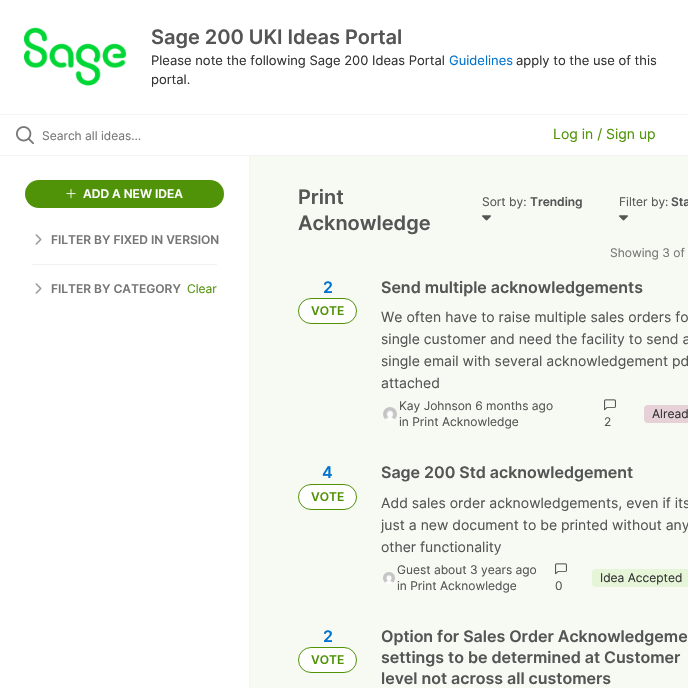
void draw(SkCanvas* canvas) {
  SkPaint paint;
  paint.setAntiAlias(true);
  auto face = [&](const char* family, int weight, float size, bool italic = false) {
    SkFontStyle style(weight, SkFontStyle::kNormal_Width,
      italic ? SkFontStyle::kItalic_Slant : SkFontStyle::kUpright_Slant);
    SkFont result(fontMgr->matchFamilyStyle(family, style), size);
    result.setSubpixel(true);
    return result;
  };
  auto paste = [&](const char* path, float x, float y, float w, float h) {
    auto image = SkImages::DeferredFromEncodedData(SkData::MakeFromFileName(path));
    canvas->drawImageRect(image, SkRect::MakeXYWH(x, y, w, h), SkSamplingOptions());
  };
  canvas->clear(0xfff7faf3);
  paint.setColor(0xffffffff);
  canvas->drawRect(SkRect::MakeXYWH(0, 0, 688, 114), paint);
  paint.setColor(0xfff4f4f4);
  canvas->drawRect(SkRect::MakeXYWH(0, 114, 688, 1), paint);
  paste("img/1.png", 24, 27, 103, 59);
  paint.setColor(0xffffffff);
  canvas->drawRect(SkRect::MakeXYWH(0, 115, 688, 40), paint);
  paint.setColor(0xfff4f4f4);
  canvas->drawRect(SkRect::MakeXYWH(0, 155, 688, 1), paint);
  paste("img/2.png", 16, 126, 18, 19);
  paint.setColor(0xffffffff);
  canvas->drawRect(SkRect::MakeXYWH(0, 156, 249, 532), paint);
  paint.setColor(0xfff4f4f4);
  canvas->drawRect(SkRect::MakeXYWH(249, 156, 1, 532), paint);
  paint.setColor(0xff509308);
  canvas->drawRoundRect(SkRect::MakeXYWH(25, 180, 199, 28), 14, 14, paint);
  paste("img/3.png", 66, 189, 10, 10);
  paste("img/4.png", 35, 234, 7, 11);
  paint.setColor(0xfff1f1f1);
  canvas->drawRect(SkRect::MakeXYWH(32, 264, 185, 1), paint);
  paste("img/4.png", 35, 283, 7, 11);
  paste("img/5.png", 482, 215, 9, 6);
  paste("img/5.png", 619, 215, 9, 6);
  paint.setColor(0xffffffff);
  canvas->drawRoundRect(SkRect::MakeXYWH(298.5f, 298.5f, 58, 25), 12.5f, 12.5f, paint);
  paint.setStroke(true);
  paint.setStrokeWidth(1);
  paint.setColor(0xff509308);
  canvas->drawRoundRect(SkRect::MakeXYWH(298.5f, 298.5f, 58, 25), 12.5f, 12.5f, paint);
  paste("img/6.png", 383, 407, 14, 14);
  paint.setStroke(false);
  paint.setColor(0xffe7d1d8);
  canvas->drawRoundRect(SkRect::MakeXYWH(644, 405, 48, 18), 4, 4, paint);
  paste("img/7.png", 604, 399, 12, 12);
  paint.setColor(0xffffffff);
  canvas->drawRoundRect(SkRect::MakeXYWH(298.5f, 484.5f, 58, 25), 12.5f, 12.5f, paint);
  paint.setStroke(true);
  paint.setColor(0xff509308);
  canvas->drawRoundRect(SkRect::MakeXYWH(298.5f, 484.5f, 58, 25), 12.5f, 12.5f, paint);
  paste("img/8.png", 383, 572, 12, 12);
  paint.setStroke(false);
  paint.setColor(0xffe6f4d8);
  canvas->drawRoundRect(SkRect::MakeXYWH(592, 569, 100, 18), 4, 4, paint);
  paste("img/7.png", 555, 563, 12, 12);
  paint.setColor(0xffffffff);
  canvas->drawRoundRect(SkRect::MakeXYWH(298.5f, 647.5f, 58, 25), 12.5f, 12.5f, paint);
  paint.setStroke(true);
  paint.setColor(0xff509308);
  canvas->drawRoundRect(SkRect::MakeXYWH(298.5f, 647.5f, 58, 25), 12.5f, 12.5f, paint);
  auto f0 = face("Inter", 600, 20);
  paint.setStroke(false);
  paint.setColor(0xff555555);
  canvas->drawString("Sage 200 UKI Ideas Portal", 151, 44, f0, paint);
  auto f1 = face("Inter", 400, 13);
  paint.setColor(0xff333333);
  canvas->drawString("Please note the following Sage 200 Ideas Portal", 151, 65, f1, paint);
  paint.setColor(0xff0073cf);
  canvas->drawString("Guidelines", 449, 65, f1, paint);
  paint.setColor(0xff333333);
  canvas->drawString("apply to the use of this", 516, 65, f1, paint);
  canvas->drawString("portal.", 151, 84, f1, paint);
  auto f2 = face("Inter", 400, 12);
  paint.setColor(0xff767676);
  canvas->drawString("Search all ideas…", 42, 140, f2, paint);
  auto f3 = face("Inter", 400, 14);
  paint.setColor(0xff509308);
  canvas->drawString("Log in / Sign up", 553, 139, f3, paint);
  auto f4 = face("Inter", 600, 12);
  paint.setColor(0xffffffff);
  canvas->drawString("ADD A NEW IDEA", 83, 198, f4, paint);
  paint.setColor(0xff767676);
  canvas->drawString("FILTER BY FIXED IN VERSION", 51, 244, f4, paint);
  canvas->drawString("FILTER BY CATEGORY", 51, 293, f4, paint);
  paint.setColor(0xff509308);
  canvas->drawString("Clear", 187, 293, f2, paint);
  paint.setColor(0xff555555);
  canvas->drawString("Print", 298, 204, f0, paint);
  canvas->drawString("Acknowledge", 298, 230, f0, paint);
  canvas->drawString("Sort by:", 482, 206, f2, paint);
  canvas->drawString("Trending", 530, 206, f4, paint);
  canvas->drawString("Filter by:", 619, 206, f2, paint);
  canvas->drawString("Sta", 671, 206, f4, paint);
  paint.setColor(0xff767676);
  canvas->drawString("Showing 3 of", 610, 257, f2, paint);
  auto f5 = face("Inter", 600, 16);
  paint.setColor(0xff0073cf);
  canvas->drawString("2", 323, 293, f5, paint);
  paint.setColor(0xff509308);
  canvas->drawString("VOTE", 311, 315, f4, paint);
  paint.setColor(0xff555555);
  canvas->drawString("Send multiple acknowledgements", 381, 293, f5, paint);
  {
    const struct { const char* s; float x, y; } items[] = {
      {"We often have to raise multiple sales orders fo", 381, 322},
      {"single customer and need the facility to send a", 381, 344},
      {"single email with several acknowledgement pd", 381, 366},
      {"attached", 381, 388},
    };
    for (auto [s, x, y] : items) {
      canvas->drawString(s, x, y, f3, paint);
    }
  }
  canvas->drawString("Kay Johnson 6 months ago", 399, 410, f2, paint);
  canvas->drawString("in Print Acknowledge", 399, 426, f2, paint);
  paint.setColor(0xff333333);
  canvas->drawString("Alread", 652, 418, f2, paint);
  paint.setColor(0xff555555);
  canvas->drawString("2", 604, 426, f2, paint);
  paint.setColor(0xff0073cf);
  canvas->drawString("4", 322, 478, f5, paint);
  paint.setColor(0xff509308);
  canvas->drawString("VOTE", 311, 501, f4, paint);
  paint.setColor(0xff555555);
  canvas->drawString("Sage 200 Std acknowledgement", 381, 478, f5, paint);
  {
    const struct { const char* s; float x, y; } items[] = {
      {"Add sales order acknowledgements, even if its", 381, 508},
      {"just a new document to be printed without any", 381, 530},
      {"other functionality", 381, 552},
    };
    for (auto [s, x, y] : items) {
      canvas->drawString(s, x, y, f3, paint);
    }
  }
  canvas->drawString("Guest about 3 years ago", 397, 574, f2, paint);
  canvas->drawString("in Print Acknowledge", 397, 590, f2, paint);
  paint.setColor(0xff333333);
  canvas->drawString("Idea Accepted", 600, 582, f2, paint);
  paint.setColor(0xff555555);
  canvas->drawString("0", 555, 590, f2, paint);
  paint.setColor(0xff0073cf);
  canvas->drawString("2", 323, 642, f5, paint);
  paint.setColor(0xff509308);
  canvas->drawString("VOTE", 311, 664, f4, paint);
  paint.setColor(0xff555555);
  {
    const struct { const char* s; float x, y; } items[] = {
      {"Option for Sales Order Acknowledgeme", 381, 642},
      {"settings to be determined at Customer", 381, 663},
      {"level not across all customers", 381, 684},
    };
    for (auto [s, x, y] : items) {
      canvas->drawString(s, x, y, f5, paint);
    }
  }
}
